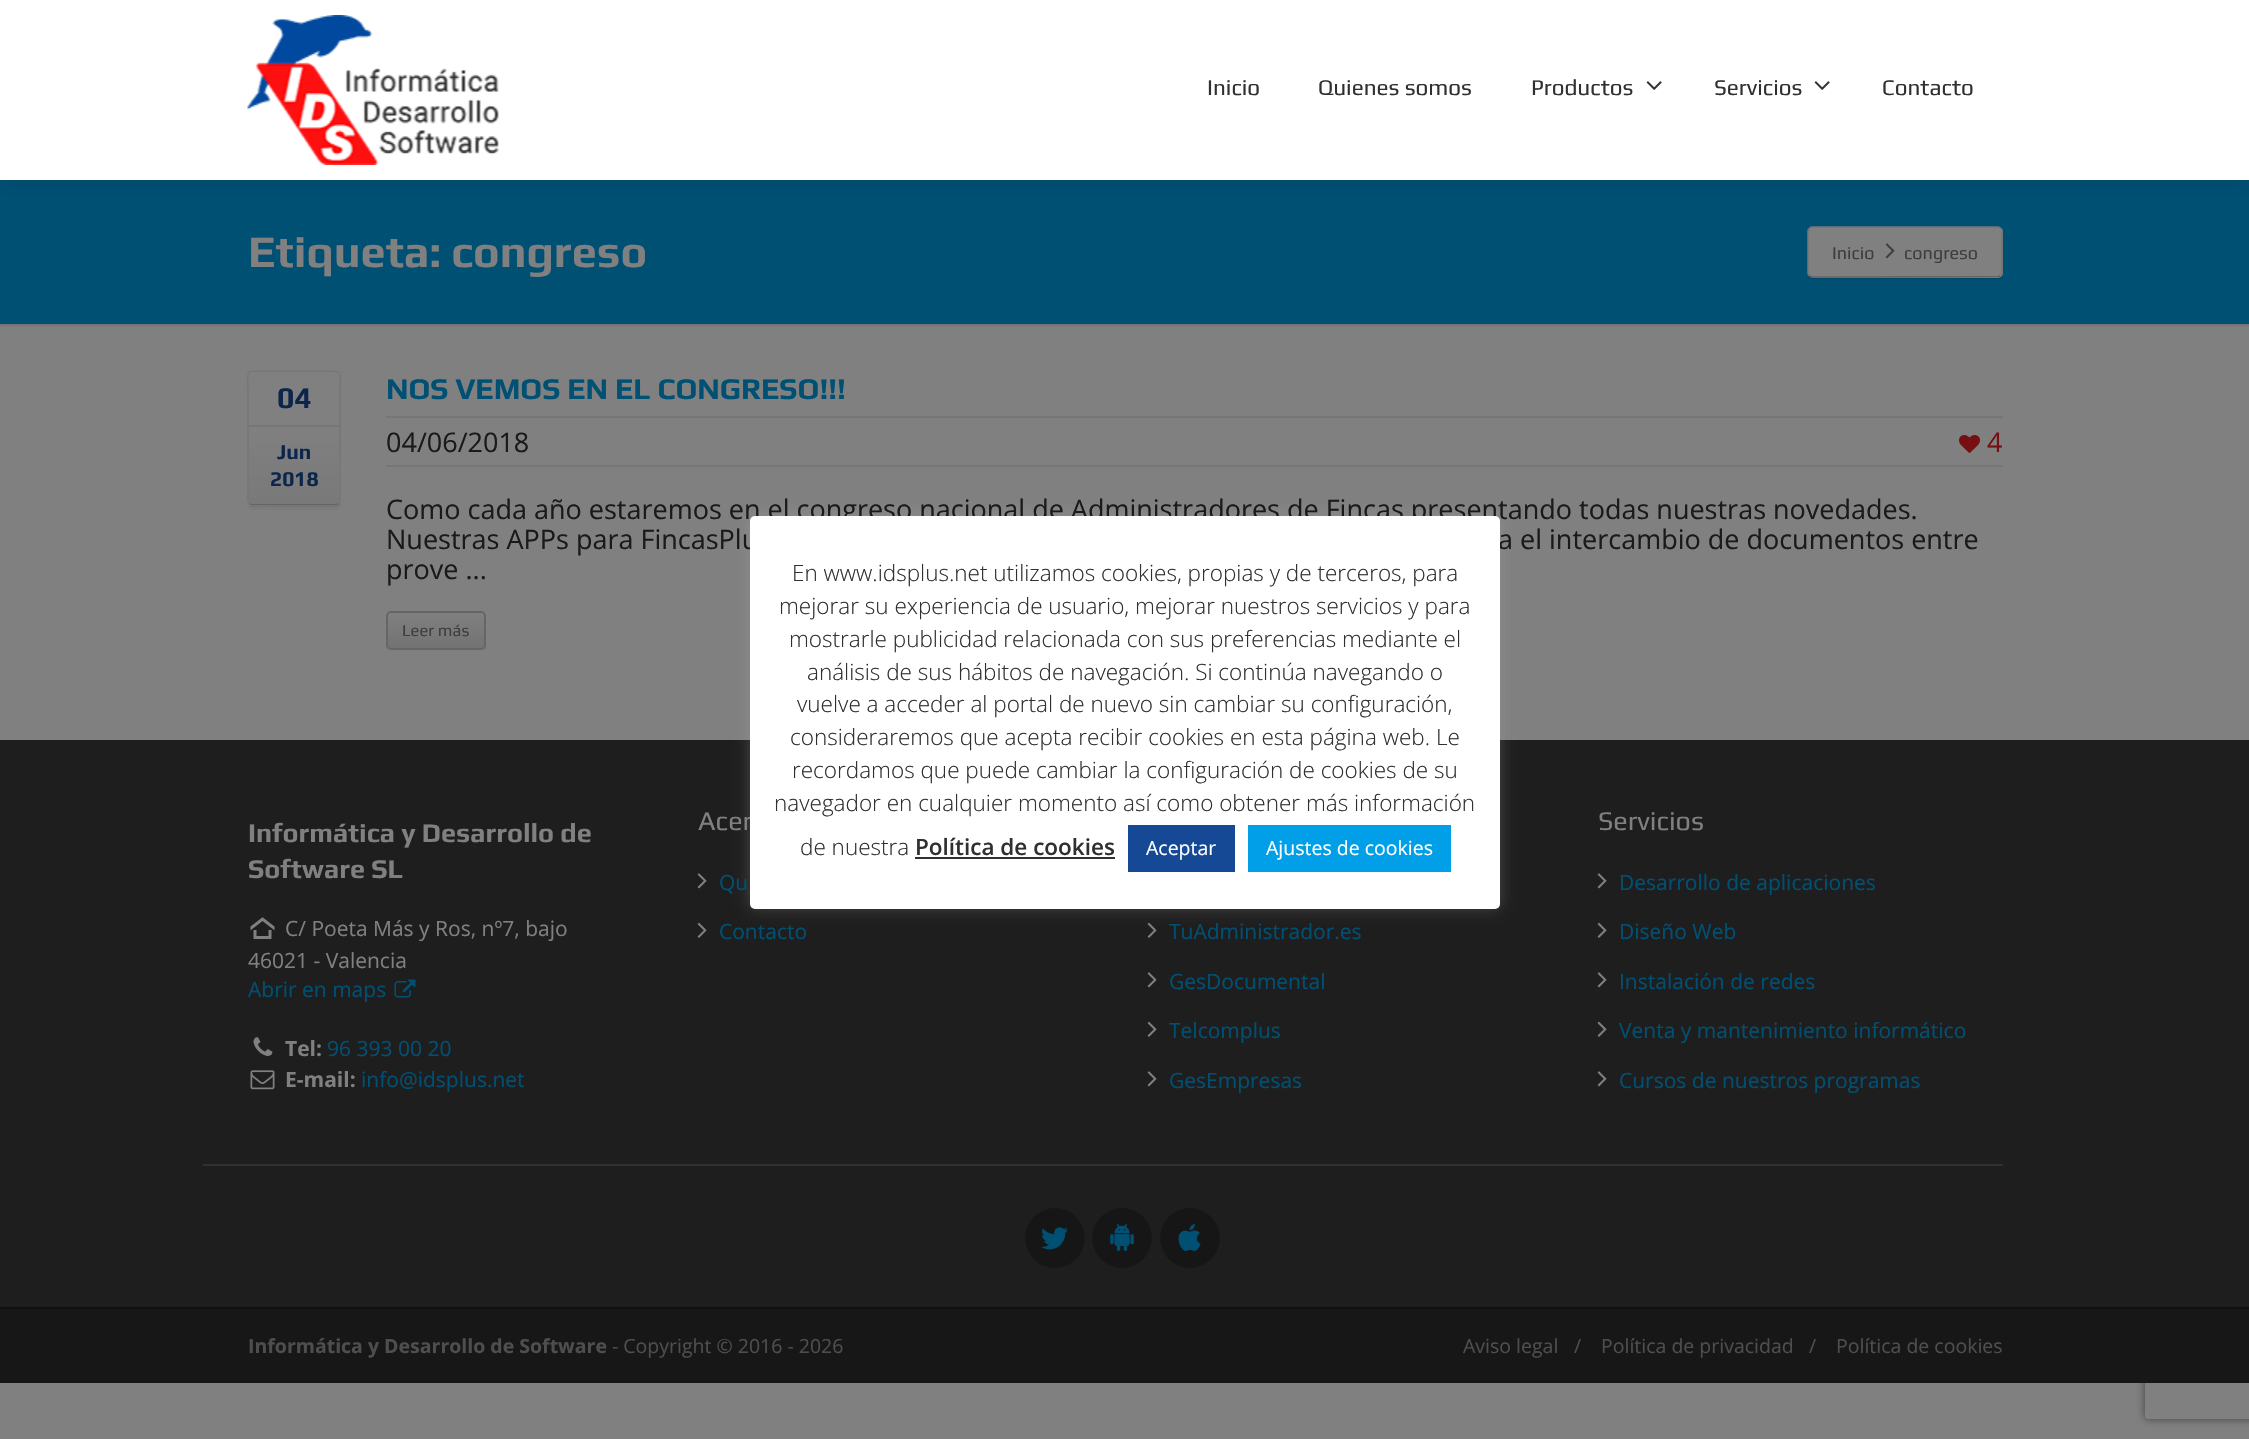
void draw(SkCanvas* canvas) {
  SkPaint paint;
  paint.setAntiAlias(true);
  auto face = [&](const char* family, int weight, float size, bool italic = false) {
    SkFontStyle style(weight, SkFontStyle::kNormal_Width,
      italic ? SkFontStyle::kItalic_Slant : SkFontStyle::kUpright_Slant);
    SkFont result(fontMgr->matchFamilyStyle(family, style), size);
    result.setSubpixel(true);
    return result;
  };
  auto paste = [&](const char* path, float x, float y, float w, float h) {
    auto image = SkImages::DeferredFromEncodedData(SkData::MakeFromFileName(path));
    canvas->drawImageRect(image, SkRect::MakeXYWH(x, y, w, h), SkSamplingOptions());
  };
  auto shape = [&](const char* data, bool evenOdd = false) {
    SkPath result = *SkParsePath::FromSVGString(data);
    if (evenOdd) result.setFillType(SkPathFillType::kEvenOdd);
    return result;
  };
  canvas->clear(0xff808080);
  paint.setColor(0xff005074);
  canvas->drawRect(SkRect::MakeXYWH(0, 180, 2249, 144), paint);
  paint.setColor(0x1a000000);
  paint.setMaskFilter(SkMaskFilter::MakeBlur(kNormal_SkBlurStyle, 7.5f));
  canvas->drawRect(SkRect::MakeXYWH(0, 3, 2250, 180), paint);
  paint.setMaskFilter(nullptr);
  paint.setColor(0xffffffff);
  canvas->drawRect(SkRect::MakeXYWH(0, 0, 2249, 180), paint);
  paste("img/1.png", 247, 15, 252, 150);
  paste("img/2.png", 1646, 81, 16, 9);
  paste("img/2.png", 1814, 81, 16, 9);
  paint.setColor(0xff767676);
  canvas->drawRect(SkRect::MakeXYWH(0, 324, 2249, 2), paint);
  paint.setColor(0xff004a6c);
  canvas->drawPath(shape("M1808 275C1809 277 1811 279 1813 279H1998C2001 279 2003 277 2003 274V233L2002 231V273C2002 275 2000 278 1998 278H1812C1810 278 1809 277 1808 275Z"), paint);
  paint.setColor(0x08000000);
  canvas->drawPath(shape("M1808 275V277C1808 280 1810 282 1813 282H1998C2001 282 2003 280 2003 277V236L2002 234V273C2002 275 2000 278 1998 278H1812C1810 278 1809 277 1808 275Z"), paint);
  paint.setColor(0xff808080);
  canvas->drawRoundRect(SkRect::MakeXYWH(1808, 227, 195, 51), 5, 5, paint);
  paint.setStroke(true);
  paint.setStrokeWidth(1.5f);
  paint.setColor(0x38000000);
  canvas->drawPath(shape("M2000.5 275.5L1998.5 276.5L1843 277H1812L1809.5 275.5"), paint);
  paint.setColor(0xff767676);
  canvas->drawPath(shape("M1809.5 275.5C1808.5 275 1808 274 1808 273V231C1808 230 1808.5 229 1809.5 228.5C1810 227.5 1811 227 1812 227H1998C1999 227 2000 227.5 2000.5 228.5C2001.5 229 2002 230 2002 231V273C2002 274 2001.5 275 2000.5 275.5"), paint);
  paste("img/3.png", 1885, 243, 10, 16);
  paint.setStroke(false);
  paint.setColor(0xff777777);
  canvas->drawPath(shape("M248 503C249 505 251 507 253 507H336C339 507 341 505 341 502V377L340 375V480C340 507 346 506 322 506H266C266 506 251 508 248 503Z"), paint);
  paint.setColor(0x08000000);
  canvas->drawPath(shape("M248 503V505C248 508 250 510 253 510H336C339 510 341 508 341 505V380L340 378V501C340 503 338 506 336 506H252C250 506 249 505 248 503Z"), paint);
  paint.setColor(0xff808080);
  canvas->drawRoundRect(SkRect::MakeXYWH(248, 371, 93, 135), 5, 5, paint);
  paint.setStroke(true);
  paint.setColor(0xff646464);
  canvas->drawPath(shape("M338.5 503.5L336.5 504.5H251.5L249.5 503.5"), paint);
  paint.setColor(0xff767676);
  canvas->drawPath(shape("M249.5 503.5L248 501V396C248 369 243 371 266 371H322C345 371 340 369 340 396V501L338.5 503.5"), paint);
  paint.setStroke(false);
  {
    const SkColor colors[] = {0xff808080, 0xff797979};
    const float stops[] = {0, 1};
    const SkPoint ends[] = {{294, 426}, {294, 504}};
    paint.setShader(SkGradientShader::MakeLinear(ends, colors, stops, 2, SkTileMode::kClamp));
    paint.setAlpha(255);
  }
  canvas->drawPath(shape("M249 426H339V499C339 502 337 504 334 504H254C251 504 249 502 249 499Z"), paint);
  paint.setShader(nullptr);
  {
    const struct { float x, y, w, h; SkColor color; } items[] = {
      {249, 425, 90, 2, 0xff767676},
      {386, 416, 1617, 2, 0xff767676},
      {386, 465, 1617, 2, 0xff767676},
    };
    for (auto [x, y, w, h, color] : items) {
      paint.setColor(color);
      canvas->drawRect(SkRect::MakeXYWH(x, y, w, h), paint);
    }
  }
  paste("img/4.png", 1959, 435, 21, 18);
  canvas->save();
  canvas->clipRect(SkRect::MakeXYWH(386, 371, 1617, 279));
  canvas->drawPath(shape("M386 647C387 649 389 651 391 651H481C484 651 486 649 486 646V645C486 647 484 650 482 650H390C388 650 387 649 386 647Z"), paint);
  canvas->restore();
  canvas->save();
  canvas->clipPath(shape("M391 611H481C484 611 486 613 486 616V645C486 648 484 650 481 650H391C388 650 386 648 386 645V616C386 613 388 611 391 611Z"), true);
  {
    const SkColor colors[] = {0xff808080, 0xff737373};
    const float stops[] = {0, 1};
    const SkPoint ends[] = {{436, 612}, {436, 648}};
    paint.setShader(SkGradientShader::MakeLinear(ends, colors, stops, 2, SkTileMode::kClamp));
    paint.setAlpha(255);
  }
  canvas->drawRect(SkRect::MakeXYWH(386, 612, 100, 36), paint);
  canvas->restore();
  paint.setStroke(true);
  paint.setStrokeWidth(2);
  paint.setShader(nullptr);
  paint.setColor(0xff666666);
  canvas->drawRoundRect(SkRect::MakeXYWH(387, 612, 98, 37), 4, 4, paint);
  paint.setStroke(false);
  paint.setColor(0xff1e1e1e);
  canvas->drawRect(SkRect::MakeXYWH(0, 740, 2249, 567), paint);
  paste("img/5.png", 250, 917, 25, 22);
  paste("img/6.png", 394, 979, 22, 19);
  paste("img/7.png", 253, 1037, 20, 19);
  paste("img/8.png", 250, 1070, 25, 20);
  paste("img/9.png", 697, 873, 10, 16);
  paste("img/10.png", 697, 922, 10, 16);
  paste("img/10.png", 1147, 922, 10, 16);
  paste("img/9.png", 1147, 972, 10, 16);
  paste("img/10.png", 1147, 1021, 10, 16);
  paste("img/9.png", 1147, 1071, 10, 16);
  paste("img/9.png", 1597, 873, 10, 16);
  paste("img/10.png", 1597, 922, 10, 16);
  paste("img/9.png", 1597, 972, 10, 16);
  paste("img/10.png", 1597, 1021, 10, 16);
  paste("img/9.png", 1597, 1071, 10, 16);
  paint.setColor(0xff313131);
  canvas->drawRect(SkRect::MakeXYWH(203, 1164, 1800, 2), paint);
  paint.setColor(0xff161616);
  canvas->drawCircle(1055, 1238, 30, paint);
  paste("img/11.png", 1041, 1227, 27, 23);
  canvas->drawCircle(1122, 1238, 30, paint);
  paste("img/12.png", 1110, 1224, 24, 27);
  canvas->drawCircle(1190, 1238, 30, paint);
  paste("img/13.png", 1178, 1224, 23, 27);
  canvas->save();
  canvas->clipPath(shape("M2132 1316H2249V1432H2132ZM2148 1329H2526C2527.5 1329 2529 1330.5 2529 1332V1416C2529 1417.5 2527.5 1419 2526 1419H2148C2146.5 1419 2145 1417.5 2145 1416V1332C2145 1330.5 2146.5 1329 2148 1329Z", true), true);
  paint.setColor(0xff404040);
  paint.setMaskFilter(SkMaskFilter::MakeBlur(kNormal_SkBlurStyle, 4));
  canvas->drawRoundRect(SkRect::MakeXYWH(2145, 1329, 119, 90), 3, 3, paint);
  paint.setMaskFilter(nullptr);
  canvas->restore();
  paint.setColor(0xff171717);
  canvas->drawRect(SkRect::MakeXYWH(0, 1309, 2249, 74), paint);
  paint.setColor(0xff111111);
  canvas->drawRect(SkRect::MakeXYWH(0, 1307, 2249, 2), paint);
  paint.setColor(0x4dacabab);
  paint.setMaskFilter(SkMaskFilter::MakeBlur(kNormal_SkBlurStyle, 7.5f));
  canvas->drawRoundRect(SkRect::MakeXYWH(750, 515, 750, 393), 5, 5, paint);
  paint.setMaskFilter(nullptr);
  auto f0 = face("Play", 400, 22.5f);
  paint.setColor(0xff303030);
  {
    const struct { const char* s; float x, y; } items[] = {
      {"Inicio", 1207, 95},
      {"Quienes somos", 1318, 95},
      {"Productos", 1531, 95},
      {"Servicios", 1714, 95},
      {"Contacto", 1882, 95},
    };
    for (auto [s, x, y] : items) {
      canvas->drawString(s, x, y, f0, paint);
    }
  }
  auto f1 = face("Play", 700, 45);
  paint.setColor(0xff808080);
  canvas->drawString("Etiqueta: congreso", 248, 267, f1, paint);
  auto f2 = face("Play", 400, 18);
  paint.setColor(0xff3e3e3e);
  canvas->drawString("Inicio", 1832, 259, f2, paint);
  canvas->drawString("congreso", 1904, 259, f2, paint);
  auto f3 = face("Play", 700, 30);
  paint.setColor(0xff0b254b);
  canvas->drawString("04", 277, 408, f3, paint);
  auto f4 = face("Play", 700, 21);
  canvas->drawString("Jun", 277, 459, f4, paint);
  canvas->drawString("2018", 270, 486, f4, paint);
  paint.setColor(0xff005074);
  canvas->drawString("NOS VEMOS EN EL CONGRESO!!!", 386, 399, f3, paint);
  auto f5 = face("Open Sans", 400, 27);
  paint.setColor(0xff1a1a1a);
  canvas->drawString("04/06/2018", 386, 452, f5, paint);
  paint.setColor(0xff770e12);
  canvas->drawString("4", 1987, 452, f5, paint);
  paint.setColor(0xff1a1a1a);
  {
    const struct { const char* s; float x, y; } items[] = {
      {"Como cada año estaremos en el congreso nacional de Administradores de Fincas presentando todas nuestras novedades.", 386, 519},
      {"Nuestras APPs para FincasPlu", 386, 549},
      {"a el intercambio de documentos entre", 1498, 549},
      {"prove ...", 386, 579},
    };
    for (auto [s, x, y] : items) {
      canvas->drawString(s, x, y, f5, paint);
    }
  }
  auto f6 = face("Play", 400, 16.5f);
  paint.setColor(0xff3e3e3e);
  canvas->drawString("Leer más", 402, 636, f6, paint);
  auto f7 = face("Play", 700, 27);
  paint.setColor(0xff808080);
  canvas->drawString("Informática y Desarrollo de", 248, 842, f7, paint);
  canvas->drawString("Software SL", 248, 878, f7, paint);
  auto f8 = face("Open Sans", 400, 21);
  canvas->drawString("C/ Poeta Más y Ros, nº7, bajo", 285, 936, f8, paint);
  canvas->drawString("46021 - Valencia", 248, 968, f8, paint);
  paint.setColor(0xff005074);
  canvas->drawString("Abrir en maps", 248, 997, f8, paint);
  auto f9 = face("Open Sans", 700, 21);
  paint.setColor(0xff808080);
  canvas->drawString("Tel:", 285, 1056, f9, paint);
  paint.setColor(0xff005074);
  canvas->drawString("96 393 00 20", 327, 1056, f8, paint);
  paint.setColor(0xff808080);
  canvas->drawString("E-mail:", 285, 1087, f9, paint);
  paint.setColor(0xff005074);
  canvas->drawString("info@idsplus.net", 361, 1087, f8, paint);
  auto f10 = face("Play", 400, 27);
  paint.setColor(0xff808080);
  canvas->drawString("Acer", 698, 830, f10, paint);
  paint.setColor(0xff005074);
  {
    const struct { const char* s; float x, y; } items[] = {
      {"Qu", 719, 890},
      {"Contacto", 719, 939},
      {"TuAdministrador.es", 1169, 939},
      {"GesDocumental", 1169, 989},
      {"Telcomplus", 1169, 1038},
      {"GesEmpresas", 1169, 1088},
    };
    for (auto [s, x, y] : items) {
      canvas->drawString(s, x, y, f8, paint);
    }
  }
  paint.setColor(0xff808080);
  canvas->drawString("Servicios", 1598, 830, f10, paint);
  paint.setColor(0xff005074);
  {
    const struct { const char* s; float x, y; } items[] = {
      {"Desarrollo de aplicaciones", 1619, 890},
      {"Diseño Web", 1619, 939},
      {"Instalación de redes", 1619, 989},
      {"Venta y mantenimiento informático", 1619, 1038},
      {"Cursos de nuestros programas", 1619, 1088},
    };
    for (auto [s, x, y] : items) {
      canvas->drawString(s, x, y, f8, paint);
    }
  }
  auto f11 = face("Open Sans", 700, 19.5f);
  paint.setColor(0xff4e4e4e);
  canvas->drawString("Informática y Desarrollo de Software", 248, 1353, f11, paint);
  auto f12 = face("Open Sans", 400, 19.5f);
  {
    const struct { const char* s; float x, y; } items[] = {
      {"- Copyright © 2016 - 2026", 612, 1353},
      {"Aviso legal", 1463, 1353},
      {"/", 1574, 1353},
      {"Política de privacidad", 1601, 1353},
      {"/", 1809, 1353},
      {"Política de cookies", 1836, 1353},
    };
    for (auto [s, x, y] : items) {
      canvas->drawString(s, x, y, f12, paint);
    }
  }
  paint.setColor(0xffffffff);
  canvas->drawRoundRect(SkRect::MakeXYWH(750, 516, 750, 393), 5, 5, paint);
  auto f13 = face("Open Sans", 300, 22.5f);
  paint.setColor(0xff303030);
  {
    const struct { const char* s; float x, y; } items[] = {
      {"En www.idsplus.net utilizamos cookies, propias y de terceros, para", 792, 581},
      {"mejorar su experiencia de usuario, mejorar nuestros servicios y para", 779, 614},
      {"mostrarle publicidad relacionada con sus preferencias mediante el", 789, 647},
      {"análisis de sus hábitos de navegación. Si continúa navegando o", 807, 680},
      {"vuelve a acceder al portal de nuevo sin cambiar su configuración,", 797, 712},
      {"consideraremos que acepta recibir cookies en esta página web. Le", 790, 745},
      {"recordamos que puede cambiar la configuración de cookies de su", 792, 778},
      {"navegador en cualquier momento así como obtener más información", 774, 811},
      {"de nuestra", 800, 855},
    };
    for (auto [s, x, y] : items) {
      canvas->drawString(s, x, y, f13, paint);
    }
  }
  auto f14 = face("Open Sans", 600, 22.5f);
  canvas->drawString("Política de cookies", 915, 855, f14, paint);
  canvas->drawRect(SkRect::MakeXYWH(915, 857, 200, 2), paint);
  paint.setColor(0xff154995);
  canvas->drawRect(SkRect::MakeXYWH(1128, 825, 107, 47), paint);
  paint.setColor(0xffffffff);
  canvas->drawString("Aceptar", 1146, 855, f12, paint);
  paint.setColor(0xff009fe7);
  canvas->drawRect(SkRect::MakeXYWH(1248, 825, 203, 47), paint);
  paint.setColor(0xffffffff);
  canvas->drawString("Ajustes de cookies", 1266, 855, f12, paint);
}
